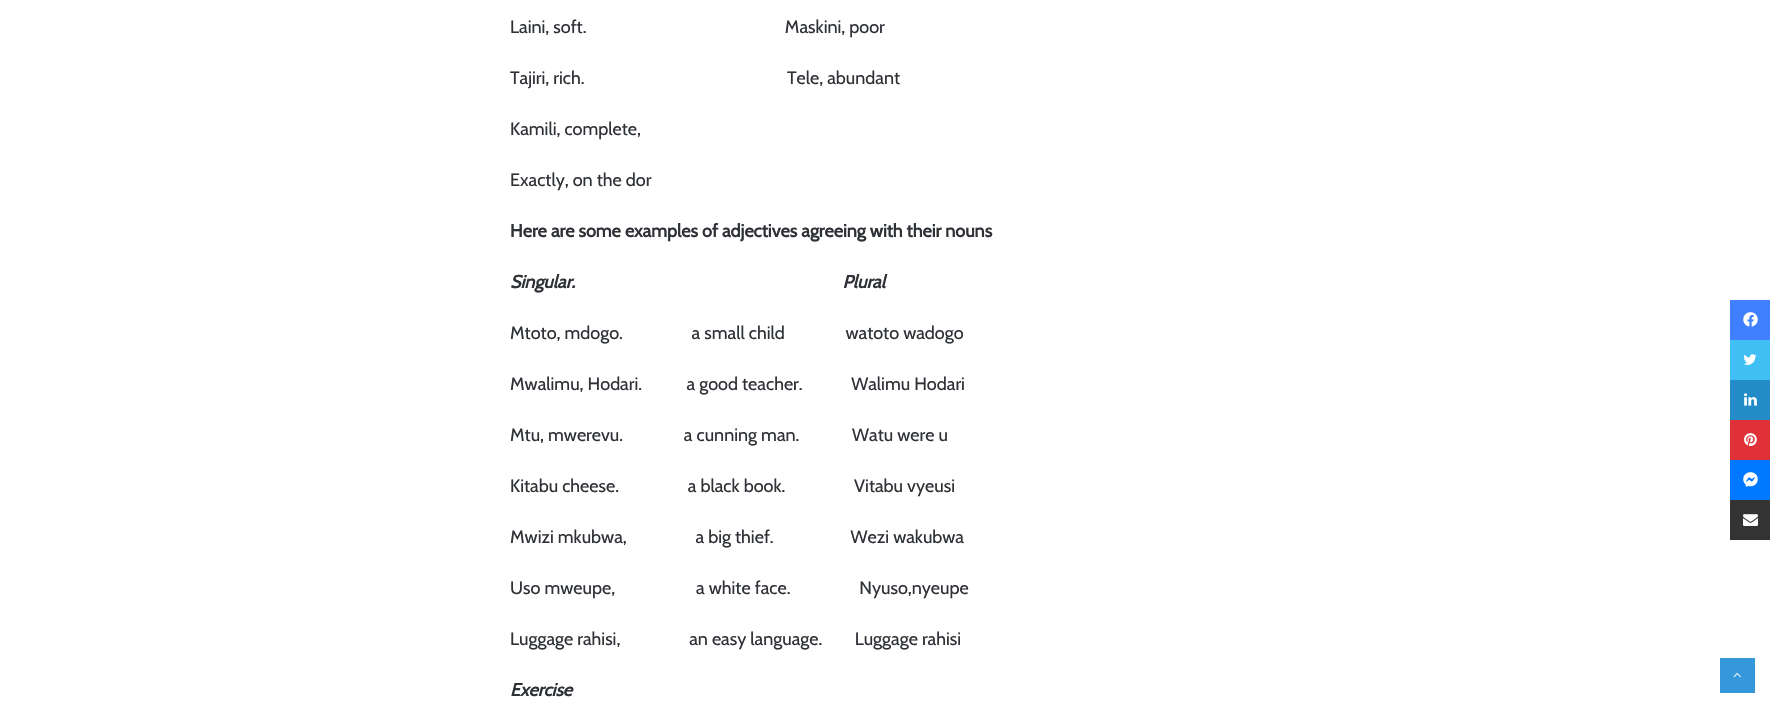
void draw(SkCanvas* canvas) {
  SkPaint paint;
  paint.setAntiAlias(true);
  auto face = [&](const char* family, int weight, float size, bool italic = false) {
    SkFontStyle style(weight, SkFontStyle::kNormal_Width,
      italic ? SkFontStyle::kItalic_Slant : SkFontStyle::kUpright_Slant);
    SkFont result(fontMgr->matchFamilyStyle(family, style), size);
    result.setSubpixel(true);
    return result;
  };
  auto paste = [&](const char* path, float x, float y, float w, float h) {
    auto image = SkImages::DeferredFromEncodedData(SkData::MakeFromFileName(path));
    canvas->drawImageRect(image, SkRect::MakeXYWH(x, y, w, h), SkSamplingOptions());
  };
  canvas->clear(0xffffffff);
  paint.setColor(0xff4080ff);
  canvas->drawRect(SkRect::MakeXYWH(1730, 300, 40, 40), paint);
  paste("img/1.png", 1743, 312, 15, 15);
  paint.setColor(0xff40bff5);
  canvas->drawRect(SkRect::MakeXYWH(1730, 340, 40, 40), paint);
  paste("img/2.png", 1743, 354, 14, 11);
  paint.setColor(0xff238cc8);
  canvas->drawRect(SkRect::MakeXYWH(1730, 380, 40, 40), paint);
  paste("img/3.png", 1744, 393, 13, 13);
  paint.setColor(0xffe13138);
  canvas->drawRect(SkRect::MakeXYWH(1730, 420, 40, 40), paint);
  paste("img/4.png", 1744, 433, 13, 13);
  paint.setColor(0xff0078ff);
  canvas->drawRect(SkRect::MakeXYWH(1730, 460, 40, 40), paint);
  paste("img/5.png", 1743, 472, 15, 15);
  paint.setColor(0xff333333);
  canvas->drawRect(SkRect::MakeXYWH(1730, 500, 40, 40), paint);
  paste("img/6.png", 1743, 514, 15, 12);
  paint.setColor(0xff3498db);
  canvas->drawRect(SkRect::MakeXYWH(1720, 658, 35, 35), paint);
  paste("img/7.png", 1733, 672, 8, 6);
  auto f0 = face("Cabin", 400, 18);
  paint.setColor(0xff2e3136);
  {
    const struct { const char* s; float x, y; } items[] = {
      {"Laini, soft.                                                 Maskini, poor", 510, 33},
      {"Tajiri, rich.                                                  Tele, abundant", 510, 84},
      {"Kamili, complete,", 510, 135},
      {"Exactly, on the dor", 510, 186},
    };
    for (auto [s, x, y] : items) {
      canvas->drawString(s, x, y, f0, paint);
    }
  }
  auto f1 = face("Cabin", 700, 18);
  canvas->drawString("Here are some examples of adjectives agreeing with their nouns", 510, 237, f1, paint);
  auto f2 = face("Cabin", 700, 18, true);
  canvas->drawString("Singular.                                                                  Plural", 510, 288, f2, paint);
  {
    const struct { const char* s; float x, y; } items[] = {
      {"Mtoto, mdogo.                 a small child               watoto wadogo", 510, 339},
      {"Mwalimu, Hodari.           a good teacher.            Walimu Hodari", 510, 390},
      {"Mtu, mwerevu.               a cunning man.             Watu were u", 510, 441},
      {"Kitabu cheese.                 a black book.                 Vitabu vyeusi", 510, 492},
      {"Mwizi mkubwa,                 a big thief.                   Wezi wakubwa", 510, 543},
      {"Uso mweupe,                    a white face.                 Nyuso,nyeupe", 510, 594},
      {"Luggage rahisi,                 an easy language.        Luggage rahisi", 510, 645},
    };
    for (auto [s, x, y] : items) {
      canvas->drawString(s, x, y, f0, paint);
    }
  }
  canvas->drawString("Exercise", 510, 696, f2, paint);
}
